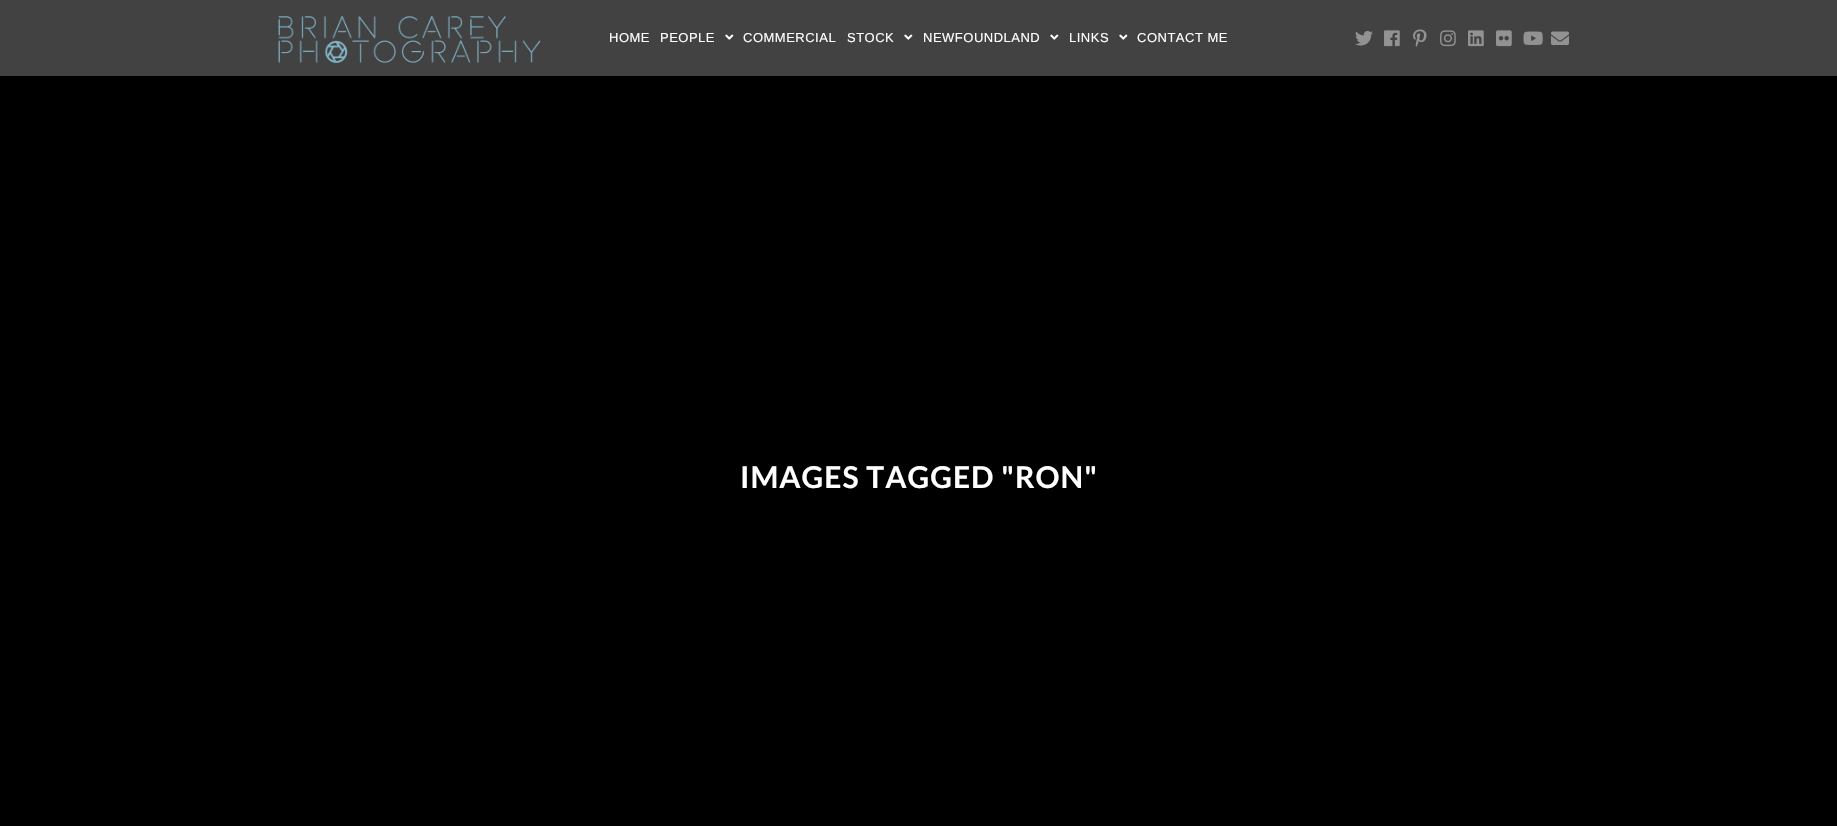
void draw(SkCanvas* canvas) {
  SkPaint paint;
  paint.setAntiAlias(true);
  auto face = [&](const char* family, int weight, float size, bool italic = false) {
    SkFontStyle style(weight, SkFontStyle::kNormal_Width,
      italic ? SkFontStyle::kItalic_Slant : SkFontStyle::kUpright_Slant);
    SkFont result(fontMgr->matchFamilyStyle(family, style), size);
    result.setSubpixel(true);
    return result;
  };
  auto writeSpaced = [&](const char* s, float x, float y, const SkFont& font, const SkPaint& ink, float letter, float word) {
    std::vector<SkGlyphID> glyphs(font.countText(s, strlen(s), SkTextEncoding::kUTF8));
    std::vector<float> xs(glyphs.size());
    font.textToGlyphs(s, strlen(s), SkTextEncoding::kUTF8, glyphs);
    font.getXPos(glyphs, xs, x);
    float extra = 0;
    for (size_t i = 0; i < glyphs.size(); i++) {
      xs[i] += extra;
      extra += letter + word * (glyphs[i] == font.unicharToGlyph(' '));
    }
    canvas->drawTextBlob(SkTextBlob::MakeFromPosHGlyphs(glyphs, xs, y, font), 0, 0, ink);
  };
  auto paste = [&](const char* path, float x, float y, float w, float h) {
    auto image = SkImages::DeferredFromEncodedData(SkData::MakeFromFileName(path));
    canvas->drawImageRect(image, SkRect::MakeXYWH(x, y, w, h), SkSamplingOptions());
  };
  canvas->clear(0xff000000);
  paint.setColor(0xff424242);
  canvas->drawRect(SkRect::MakeXYWH(0, 0, 1837, 76), paint);
  paste("img/1.png", 278, 16, 263, 48);
  paste("img/2.png", 725, 34, 9, 6);
  paste("img/2.png", 904, 34, 9, 6);
  paste("img/2.png", 1050, 34, 9, 6);
  paste("img/2.png", 1119, 34, 9, 6);
  paste("img/3.png", 1355, 31, 18, 15);
  paste("img/4.png", 1384, 30, 16, 17);
  paste("img/5.png", 1413, 29, 14, 18);
  paste("img/6.png", 1440, 30, 16, 17);
  paste("img/7.png", 1468, 30, 16, 17);
  paste("img/8.png", 1496, 30, 16, 17);
  paste("img/9.png", 1523, 31, 20, 14);
  paste("img/10.png", 1551, 31, 18, 14);
  auto f0 = face("Liberation Sans", 400, 13);
  paint.setColor(0xffffffff);
  {
    const struct { const char* s; float x, y; } items[] = {
      {"HOME", 609, 42},
      {"PEOPLE", 660, 42},
      {"COMMERCIAL", 743, 42},
      {"STOCK", 847, 42},
      {"NEWFOUNDLAND", 923, 42},
      {"LINKS", 1069, 42},
      {"CONTACT ME", 1137, 42},
    };
    for (auto [s, x, y] : items) {
      writeSpaced(s, x, y, f0, paint, 0.5f, 0);
    }
  }
  auto f1 = face("Lato", 700, 30);
  writeSpaced("IMAGES TAGGED \"RON\"", 740, 488, f1, paint, 1, 0);
}
